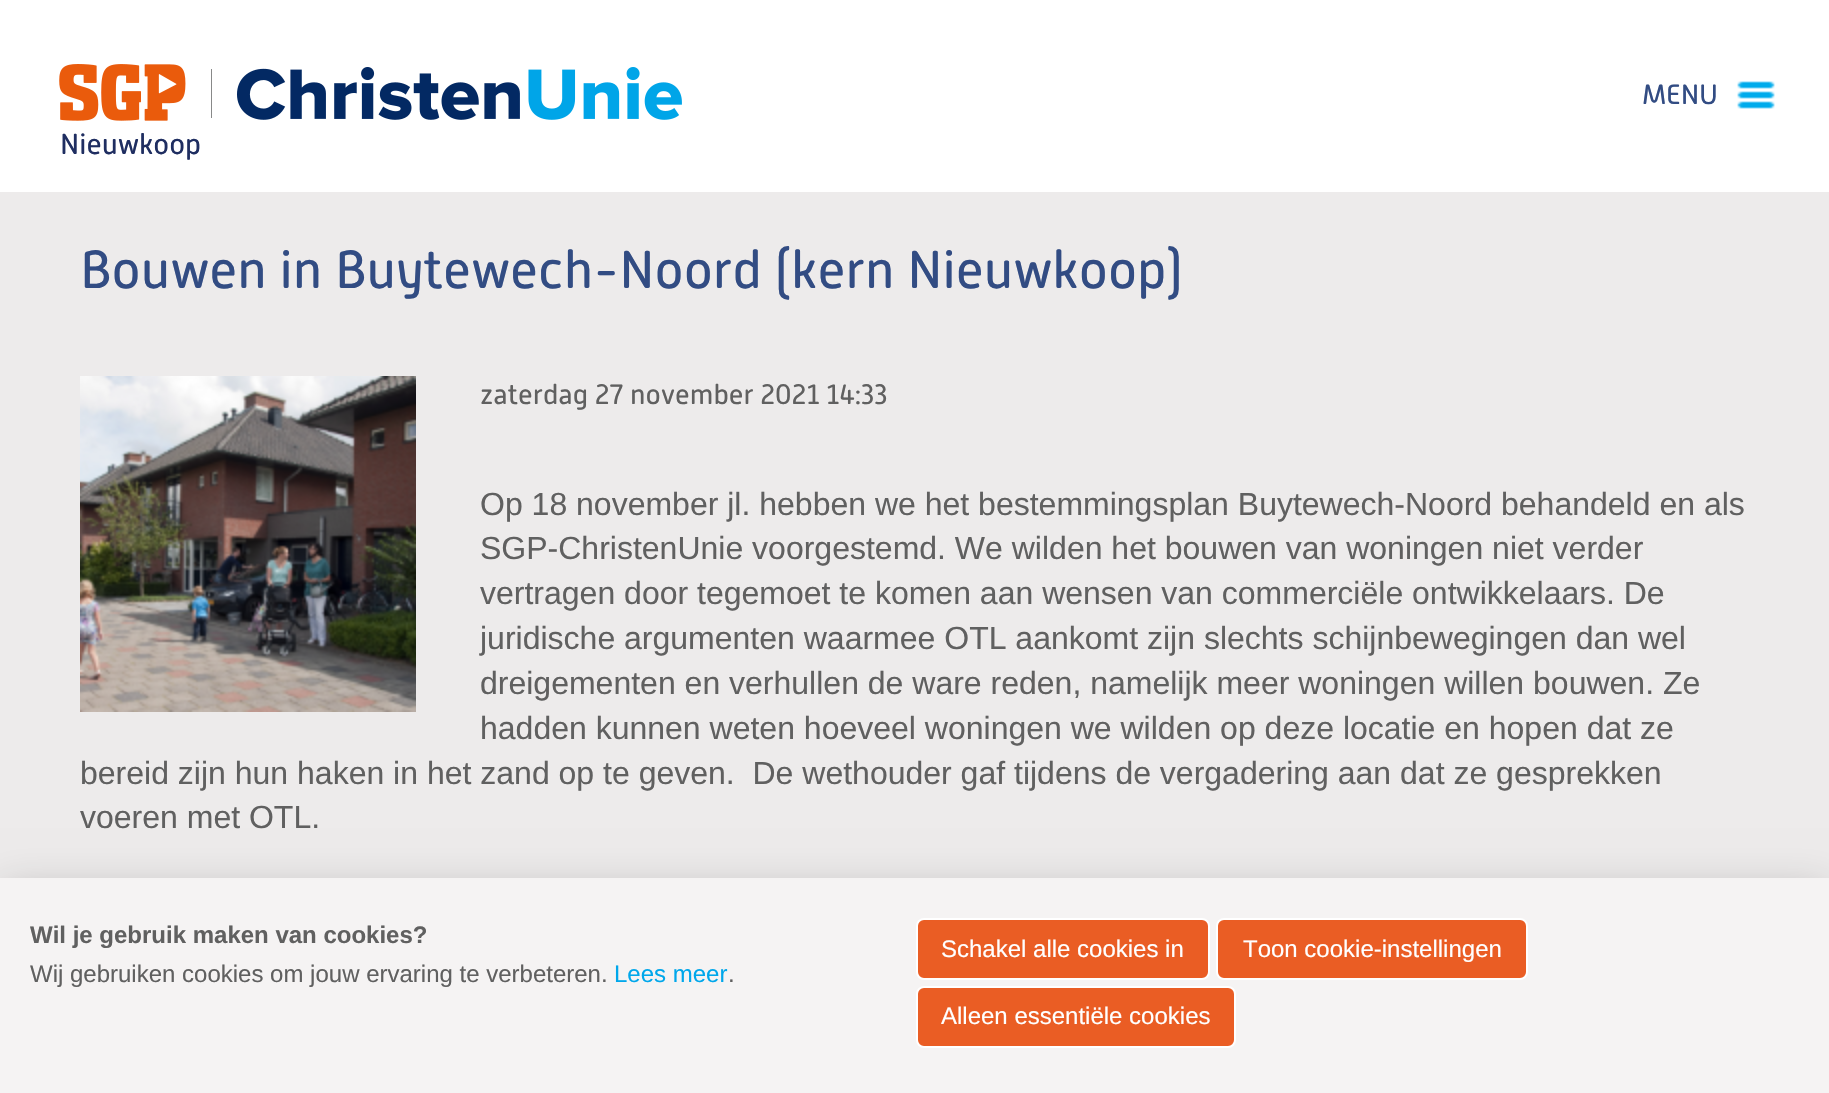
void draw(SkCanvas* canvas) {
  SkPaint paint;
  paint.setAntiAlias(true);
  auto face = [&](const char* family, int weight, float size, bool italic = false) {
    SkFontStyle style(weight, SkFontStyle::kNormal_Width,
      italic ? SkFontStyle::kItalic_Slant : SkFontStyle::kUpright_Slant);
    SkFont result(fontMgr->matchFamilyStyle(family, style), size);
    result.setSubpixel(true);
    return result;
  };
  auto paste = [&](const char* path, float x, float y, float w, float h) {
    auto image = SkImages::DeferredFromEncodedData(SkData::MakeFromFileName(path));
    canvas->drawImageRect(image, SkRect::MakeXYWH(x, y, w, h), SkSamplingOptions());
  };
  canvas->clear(0xffedebeb);
  paint.setColor(0xffffffff);
  canvas->drawRect(SkRect::MakeXYWH(0, 0, 1829, 192), paint);
  paste("img/1.png", 1737, 81, 38, 28);
  paste("img/2.png", 59, 64, 623, 57);
  paste("img/3.png", 80, 376, 336, 336);
  paint.setColor(0x33000000);
  paint.setMaskFilter(SkMaskFilter::MakeBlur(kNormal_SkBlurStyle, 20));
  canvas->drawRect(SkRect::MakeXYWH(0, 888, 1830, 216), paint);
  paint.setMaskFilter(nullptr);
  paint.setColor(0xfff5f3f3);
  canvas->drawRect(SkRect::MakeXYWH(0, 878, 1829, 215), paint);
  paint.setColor(0xffea5d24);
  canvas->drawRoundRect(SkRect::MakeXYWH(917, 919, 292, 60), 7, 7, paint);
  paint.setStroke(true);
  paint.setStrokeWidth(2);
  paint.setColor(0xffffffff);
  canvas->drawRoundRect(SkRect::MakeXYWH(917, 919, 292, 60), 7, 7, paint);
  paint.setStroke(false);
  paint.setColor(0xffea5d24);
  canvas->drawRoundRect(SkRect::MakeXYWH(1217, 919, 310, 60), 7, 7, paint);
  paint.setStroke(true);
  paint.setColor(0xffffffff);
  canvas->drawRoundRect(SkRect::MakeXYWH(1217, 919, 310, 60), 7, 7, paint);
  paint.setStroke(false);
  paint.setColor(0xffea5d24);
  canvas->drawRoundRect(SkRect::MakeXYWH(917, 987, 318, 60), 7, 7, paint);
  paint.setStroke(true);
  paint.setColor(0xffffffff);
  canvas->drawRoundRect(SkRect::MakeXYWH(917, 987, 318, 60), 7, 7, paint);
  auto f0 = face("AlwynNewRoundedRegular", 400, 28);
  paint.setStroke(false);
  paint.setColor(0xff324c83);
  canvas->drawString("MENU", 1642, 104, f0, paint);
  auto f1 = face("AlwynNewRoundedRegular", 400, 29);
  paint.setColor(0xff1f2e61);
  canvas->drawString("Nieuwkoop", 60, 154, f1, paint);
  auto f2 = face("AlwynNewRoundedRegular", 400, 53.3f);
  paint.setColor(0xff324c83);
  canvas->drawString("Bouwen in Buytewech-Noord (kern Nieuwkoop)", 80, 288, f2, paint);
  paint.setColor(0xff606060);
  canvas->drawString("zaterdag 27 november 2021 14:33", 480, 404, f0, paint);
  auto f3 = face("Liberation Sans", 400, 32);
  {
    const struct { const char* s; float x, y; } items[] = {
      {"Op 18 november jl. hebben we het bestemmingsplan Buytewech-Noord behandeld en als", 480, 515},
      {"SGP-ChristenUnie voorgestemd. We wilden het bouwen van woningen niet verder", 480, 559},
      {"vertragen door tegemoet te komen aan wensen van commerciële ontwikkelaars. De", 480, 604},
      {"juridische argumenten waarmee OTL aankomt zijn slechts schijnbewegingen dan wel", 480, 649},
      {"dreigementen en verhullen de ware reden, namelijk meer woningen willen bouwen. Ze", 480, 694},
      {"hadden kunnen weten hoeveel woningen we wilden op deze locatie en hopen dat ze", 480, 739},
      {"bereid zijn hun haken in het zand op te geven.  De wethouder gaf tijdens de vergadering aan dat ze gesprekken", 80, 784},
      {"voeren met OTL.", 80, 828},
    };
    for (auto [s, x, y] : items) {
      canvas->drawString(s, x, y, f3, paint);
    }
  }
  auto f4 = face("Liberation Sans", 700, 24);
  canvas->drawString("Wil je gebruik maken van cookies?", 30, 943, f4, paint);
  auto f5 = face("Liberation Sans", 400, 24);
  canvas->drawString("Wij gebruiken cookies om jouw ervaring te verbeteren.", 30, 982, f5, paint);
  paint.setColor(0xff00a7eb);
  canvas->drawString("Lees meer", 614, 982, f5, paint);
  paint.setColor(0xff606060);
  canvas->drawString(".", 728, 982, f5, paint);
  paint.setColor(0xffffffff);
  {
    const struct { const char* s; float x, y; } items[] = {
      {"Schakel alle cookies in", 941, 957},
      {"Toon cookie-instellingen", 1243, 957},
      {"Alleen essentiële cookies", 941, 1024},
    };
    for (auto [s, x, y] : items) {
      canvas->drawString(s, x, y, f5, paint);
    }
  }
}
